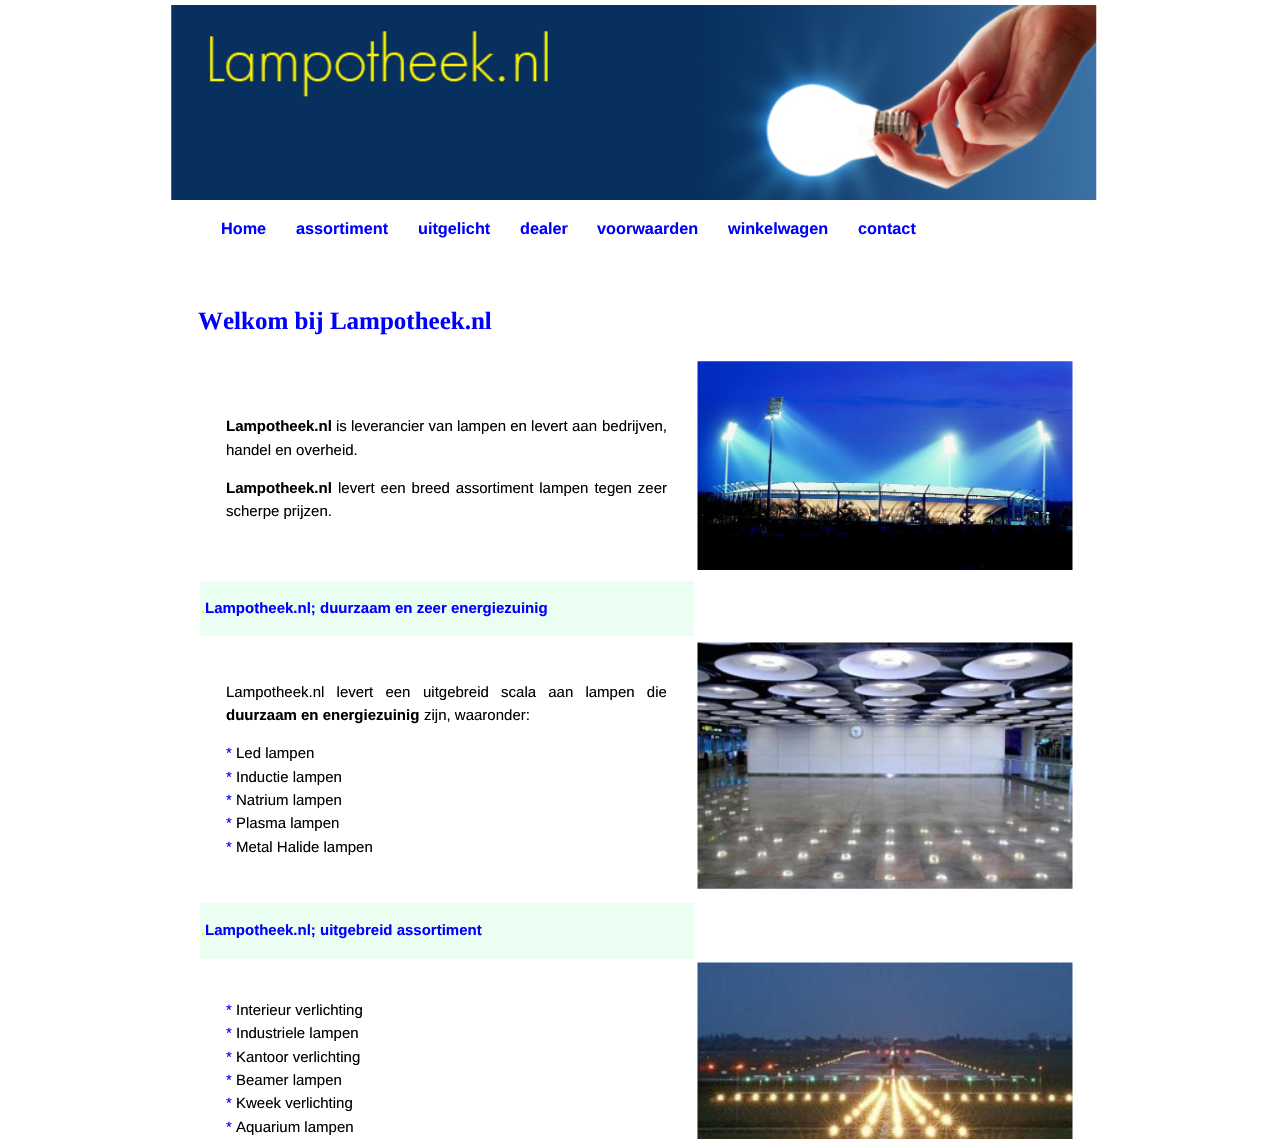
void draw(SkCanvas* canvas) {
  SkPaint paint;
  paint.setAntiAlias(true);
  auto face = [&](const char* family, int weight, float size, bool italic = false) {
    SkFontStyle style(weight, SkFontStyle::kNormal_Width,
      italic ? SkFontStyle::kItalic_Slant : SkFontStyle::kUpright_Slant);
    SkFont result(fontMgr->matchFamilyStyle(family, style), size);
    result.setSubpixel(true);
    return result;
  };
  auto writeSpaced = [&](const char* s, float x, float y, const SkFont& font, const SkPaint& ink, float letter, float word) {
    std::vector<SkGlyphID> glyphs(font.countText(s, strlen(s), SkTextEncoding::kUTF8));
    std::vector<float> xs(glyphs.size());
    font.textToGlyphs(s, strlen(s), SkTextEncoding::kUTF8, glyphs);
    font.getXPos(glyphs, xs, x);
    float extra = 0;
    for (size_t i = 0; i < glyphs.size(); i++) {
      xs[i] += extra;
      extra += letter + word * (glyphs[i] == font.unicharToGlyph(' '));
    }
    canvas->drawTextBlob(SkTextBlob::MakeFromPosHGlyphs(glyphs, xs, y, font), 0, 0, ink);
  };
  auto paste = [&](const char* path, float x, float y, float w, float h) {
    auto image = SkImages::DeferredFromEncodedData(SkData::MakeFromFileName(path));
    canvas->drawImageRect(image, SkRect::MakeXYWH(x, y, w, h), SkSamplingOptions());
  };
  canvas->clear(0xffffffff);
  paste("img/1.png", 171, 5, 926, 195);
  paste("img/2.png", 697, 361, 376, 209);
  paint.setColor(0xffeafff1);
  canvas->drawRect(SkRect::MakeXYWH(200, 581, 494, 55), paint);
  paste("img/3.png", 697, 642, 376, 247);
  canvas->drawRect(SkRect::MakeXYWH(200, 903, 494, 56), paint);
  paste("img/4.png", 697, 962, 376, 177);
  auto f0 = face("Liberation Sans", 700, 16.25f);
  paint.setColor(0xff0000ff);
  {
    const struct { const char* s; float x, y; } items[] = {
      {"Home", 221, 234},
      {"assortiment", 296, 234},
      {"uitgelicht", 418, 234},
      {"dealer", 520, 234},
      {"voorwaarden", 597, 234},
      {"winkelwagen", 728, 234},
      {"contact", 858, 234},
    };
    for (auto [s, x, y] : items) {
      canvas->drawString(s, x, y, f0, paint);
    }
  }
  auto f1 = face("Liberation Serif", 700, 25);
  canvas->drawString("Welkom bij Lampotheek.nl", 198, 329, f1, paint);
  auto f2 = face("Liberation Sans", 700, 15);
  paint.setColor(0xff000000);
  canvas->drawString("Lampotheek.nl", 226, 431, f2, paint);
  auto f3 = face("Liberation Sans", 400, 15);
  {
    const struct { const char* s; float x, y; } items[] = {
      {"is leverancier van lampen en levert aan", 336, 431},
      {"bedrijven,", 602, 431},
      {"handel en overheid.", 226, 455},
    };
    for (auto [s, x, y] : items) {
      canvas->drawString(s, x, y, f3, paint);
    }
  }
  canvas->drawString("Lampotheek.nl", 226, 493, f2, paint);
  writeSpaced("levert een breed assortiment lampen tegen zeer", 338, 493, f3, paint, 0, 1.75f);
  canvas->drawString("scherpe prijzen.", 226, 516, f3, paint);
  paint.setColor(0xffffff00);
  canvas->drawString(".", 201, 613, f2, paint);
  paint.setColor(0xff0000ff);
  canvas->drawString("Lampotheek.nl; duurzaam en zeer energiezuinig", 205, 613, f2, paint);
  paint.setColor(0xff000000);
  writeSpaced("Lampotheek.nl levert een", 226, 697, f3, paint, 0, 8);
  writeSpaced("uitgebreid scala aan lampen die", 423, 697, f3, paint, 0, 8);
  canvas->drawString("duurzaam en energiezuinig", 226, 720, f2, paint);
  canvas->drawString("zijn, waaronder:", 424, 720, f3, paint);
  paint.setColor(0xff0000ff);
  canvas->drawString("*", 226, 758, f3, paint);
  paint.setColor(0xff000000);
  canvas->drawString("Led lampen", 236, 758, f3, paint);
  paint.setColor(0xff0000ff);
  canvas->drawString("*", 226, 782, f3, paint);
  paint.setColor(0xff000000);
  canvas->drawString("Inductie lampen", 236, 782, f3, paint);
  paint.setColor(0xff0000ff);
  canvas->drawString("*", 226, 805, f3, paint);
  paint.setColor(0xff000000);
  canvas->drawString("Natrium lampen", 236, 805, f3, paint);
  paint.setColor(0xff0000ff);
  canvas->drawString("*", 226, 828, f3, paint);
  paint.setColor(0xff000000);
  canvas->drawString("Plasma lampen", 236, 828, f3, paint);
  paint.setColor(0xff0000ff);
  canvas->drawString("*", 226, 852, f3, paint);
  paint.setColor(0xff000000);
  canvas->drawString("Metal Halide lampen", 236, 852, f3, paint);
  paint.setColor(0xffffff00);
  canvas->drawString(".", 201, 935, f2, paint);
  paint.setColor(0xff0000ff);
  canvas->drawString("Lampotheek.nl; uitgebreid assortiment", 205, 935, f2, paint);
  canvas->drawString("*", 226, 1015, f3, paint);
  paint.setColor(0xff000000);
  canvas->drawString("Interieur verlichting", 236, 1015, f3, paint);
  paint.setColor(0xff0000ff);
  canvas->drawString("*", 226, 1038, f3, paint);
  paint.setColor(0xff000000);
  canvas->drawString("Industriele lampen", 236, 1038, f3, paint);
  paint.setColor(0xff0000ff);
  canvas->drawString("*", 226, 1062, f3, paint);
  paint.setColor(0xff000000);
  canvas->drawString("Kantoor verlichting", 236, 1062, f3, paint);
  paint.setColor(0xff0000ff);
  canvas->drawString("*", 226, 1085, f3, paint);
  paint.setColor(0xff000000);
  canvas->drawString("Beamer lampen", 236, 1085, f3, paint);
  paint.setColor(0xff0000ff);
  canvas->drawString("*", 226, 1108, f3, paint);
  paint.setColor(0xff000000);
  canvas->drawString("Kweek verlichting", 236, 1108, f3, paint);
  paint.setColor(0xff0000ff);
  canvas->drawString("*", 226, 1132, f3, paint);
  paint.setColor(0xff000000);
  canvas->drawString("Aquarium lampen", 236, 1132, f3, paint);
}
